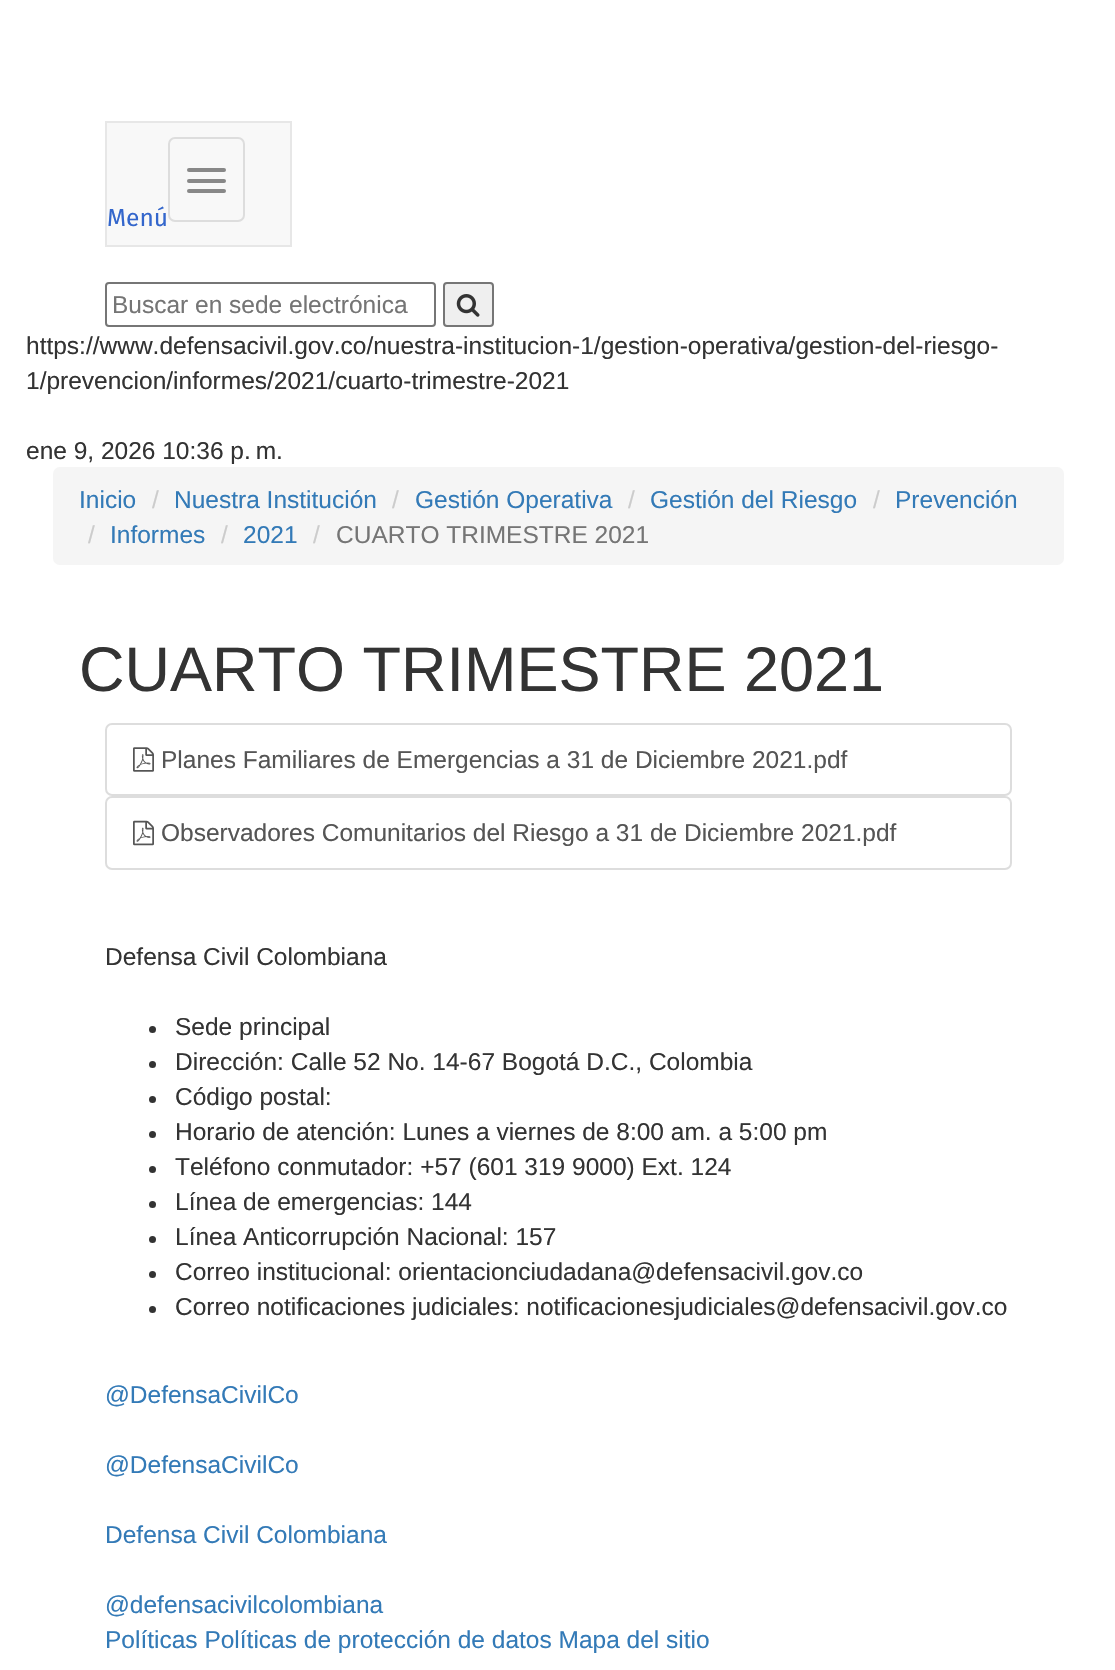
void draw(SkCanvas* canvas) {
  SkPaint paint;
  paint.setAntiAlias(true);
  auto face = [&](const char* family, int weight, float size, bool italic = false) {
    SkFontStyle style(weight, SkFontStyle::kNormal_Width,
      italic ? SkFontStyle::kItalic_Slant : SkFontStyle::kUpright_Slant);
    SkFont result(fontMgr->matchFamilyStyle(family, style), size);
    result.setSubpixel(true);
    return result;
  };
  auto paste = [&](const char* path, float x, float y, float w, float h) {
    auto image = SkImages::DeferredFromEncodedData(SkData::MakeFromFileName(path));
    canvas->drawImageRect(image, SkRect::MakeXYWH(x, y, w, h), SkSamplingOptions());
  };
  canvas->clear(0xffffffff);
  paint.setColor(0xfff8f8f8);
  canvas->drawRect(SkRect::MakeXYWH(106, 122, 185, 124), paint);
  paint.setStroke(true);
  paint.setStrokeWidth(2);
  paint.setColor(0xffe7e7e7);
  canvas->drawRect(SkRect::MakeXYWH(106, 122, 185, 124), paint);
  paint.setColor(0xffdddddd);
  canvas->drawRoundRect(SkRect::MakeXYWH(169, 138, 75, 83), 6, 6, paint);
  paint.setStroke(false);
  paint.setColor(0xff888888);
  canvas->drawRoundRect(SkRect::MakeXYWH(187, 168, 39, 4), 2, 2, paint);
  canvas->drawRoundRect(SkRect::MakeXYWH(187, 179, 39, 4), 2, 2, paint);
  canvas->drawRoundRect(SkRect::MakeXYWH(187, 189, 39, 4), 2, 2, paint);
  paint.setStroke(true);
  paint.setColor(0xff767676);
  canvas->drawRoundRect(SkRect::MakeXYWH(106, 283, 329, 43), 3, 3, paint);
  paint.setStroke(false);
  paint.setColor(0xffefefef);
  canvas->drawRoundRect(SkRect::MakeXYWH(444, 283, 49, 43), 3, 3, paint);
  paint.setStroke(true);
  paint.setColor(0xff767676);
  canvas->drawRoundRect(SkRect::MakeXYWH(444, 283, 49, 43), 3, 3, paint);
  paste("img/1.png", 456, 294, 24, 23);
  paint.setStroke(false);
  paint.setColor(0xfff5f5f5);
  canvas->drawRoundRect(SkRect::MakeXYWH(53, 467, 1011, 98), 7, 7, paint);
  paint.setStroke(true);
  paint.setColor(0xffdddddd);
  canvas->drawRoundRect(SkRect::MakeXYWH(106, 724, 905, 71), 6, 6, paint);
  paste("img/2.png", 133, 747, 21, 25);
  canvas->drawRoundRect(SkRect::MakeXYWH(106, 797, 905, 72), 6, 6, paint);
  paste("img/3.png", 133, 820, 21, 26);
  paint.setStroke(false);
  paint.setColor(0xff333333);
  canvas->drawCircle(152.5f, 1029.5f, 3.5f, paint);
  canvas->drawCircle(152.5f, 1064.5f, 3.5f, paint);
  canvas->drawCircle(152.5f, 1099.5f, 3.5f, paint);
  canvas->drawCircle(152.5f, 1134.5f, 3.5f, paint);
  canvas->drawCircle(152.5f, 1169.5f, 3.5f, paint);
  canvas->drawCircle(152.5f, 1204.5f, 3.5f, paint);
  canvas->drawCircle(152.5f, 1239.5f, 3.5f, paint);
  canvas->drawCircle(152.5f, 1274.5f, 3.5f, paint);
  canvas->drawCircle(152.5f, 1309.5f, 3.5f, paint);
  auto f0 = face("Fira Sans", 400, 24.5f);
  paint.setColor(0xff3366cc);
  canvas->drawString("Menú", 107, 226, f0, paint);
  auto f1 = face("Liberation Sans", 400, 24.5f);
  paint.setColor(0xff757575);
  canvas->drawString("Buscar en sede electrónica", 112, 313, f1, paint);
  paint.setColor(0xff333333);
  {
    const struct { const char* s; float x, y; } items[] = {
      {"https://www.defensacivil.gov.co/nuestra-institucion-1/gestion-operativa/gestion-del-riesgo-", 26, 354},
      {"1/prevencion/informes/2021/cuarto-trimestre-2021", 26, 389},
      {"ene 9, 2026 10:36 p. m.", 26, 459},
    };
    for (auto [s, x, y] : items) {
      canvas->drawString(s, x, y, f1, paint);
    }
  }
  paint.setColor(0xff337ab7);
  canvas->drawString("Inicio", 79, 508, f1, paint);
  paint.setColor(0xffcccccc);
  canvas->drawString("/", 152, 508, f1, paint);
  paint.setColor(0xff337ab7);
  canvas->drawString("Nuestra Institución", 174, 508, f1, paint);
  paint.setColor(0xffcccccc);
  canvas->drawString("/", 392, 508, f1, paint);
  paint.setColor(0xff337ab7);
  canvas->drawString("Gestión Operativa", 415, 508, f1, paint);
  paint.setColor(0xffcccccc);
  canvas->drawString("/", 628, 508, f1, paint);
  paint.setColor(0xff337ab7);
  canvas->drawString("Gestión del Riesgo", 650, 508, f1, paint);
  paint.setColor(0xffcccccc);
  canvas->drawString("/", 873, 508, f1, paint);
  paint.setColor(0xff337ab7);
  canvas->drawString("Prevención", 895, 508, f1, paint);
  paint.setColor(0xffcccccc);
  canvas->drawString("/", 88, 543, f1, paint);
  paint.setColor(0xff337ab7);
  canvas->drawString("Informes", 110, 543, f1, paint);
  paint.setColor(0xffcccccc);
  canvas->drawString("/", 221, 543, f1, paint);
  paint.setColor(0xff337ab7);
  canvas->drawString("2021", 243, 543, f1, paint);
  paint.setColor(0xffcccccc);
  canvas->drawString("/", 313, 543, f1, paint);
  paint.setColor(0xff757575);
  canvas->drawString("CUARTO TRIMESTRE 2021", 336, 543, f1, paint);
  auto f2 = face("Liberation Sans", 400, 63);
  paint.setColor(0xff333333);
  canvas->drawString("CUARTO TRIMESTRE 2021", 79, 691, f2, paint);
  paint.setColor(0xff555555);
  canvas->drawString("Planes Familiares de Emergencias a 31 de Diciembre 2021.pdf", 161, 768, f1, paint);
  canvas->drawString("Observadores Comunitarios del Riesgo a 31 de Diciembre 2021.pdf", 161, 841, f1, paint);
  paint.setColor(0xff333333);
  {
    const struct { const char* s; float x, y; } items[] = {
      {"Defensa Civil Colombiana", 105, 965},
      {"Sede principal", 175, 1035},
      {"Dirección: Calle 52 No. 14-67 Bogotá D.C., Colombia", 175, 1070},
      {"Código postal:", 175, 1105},
      {"Horario de atención: Lunes a viernes de 8:00 am. a 5:00 pm", 175, 1140},
      {"Teléfono conmutador: +57 (601 319 9000) Ext. 124", 175, 1175},
      {"Línea de emergencias: 144", 175, 1210},
      {"Línea Anticorrupción Nacional: 157", 175, 1245},
      {"Correo institucional: orientacionciudadana@defensacivil.gov.co", 175, 1280},
      {"Correo notificaciones judiciales: notificacionesjudiciales@defensacivil.gov.co", 175, 1315},
    };
    for (auto [s, x, y] : items) {
      canvas->drawString(s, x, y, f1, paint);
    }
  }
  paint.setColor(0xff337ab7);
  {
    const struct { const char* s; float x, y; } items[] = {
      {"@DefensaCivilCo", 105, 1403},
      {"@DefensaCivilCo", 105, 1473},
      {"Defensa Civil Colombiana", 105, 1543},
      {"@defensacivilcolombiana", 105, 1613},
      {"Políticas Políticas de protección de datos Mapa del sitio", 105, 1648},
    };
    for (auto [s, x, y] : items) {
      canvas->drawString(s, x, y, f1, paint);
    }
  }
}
